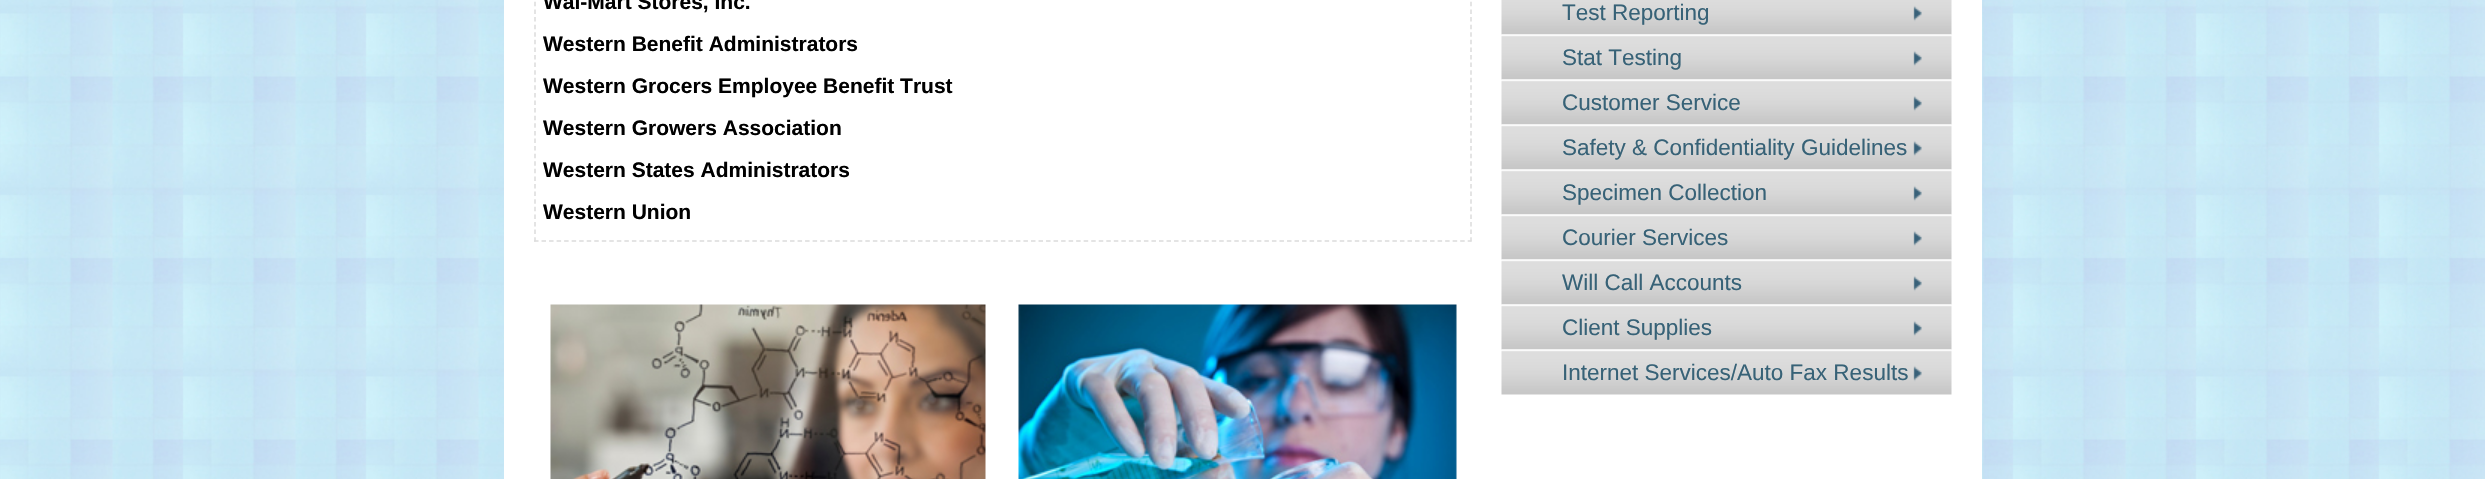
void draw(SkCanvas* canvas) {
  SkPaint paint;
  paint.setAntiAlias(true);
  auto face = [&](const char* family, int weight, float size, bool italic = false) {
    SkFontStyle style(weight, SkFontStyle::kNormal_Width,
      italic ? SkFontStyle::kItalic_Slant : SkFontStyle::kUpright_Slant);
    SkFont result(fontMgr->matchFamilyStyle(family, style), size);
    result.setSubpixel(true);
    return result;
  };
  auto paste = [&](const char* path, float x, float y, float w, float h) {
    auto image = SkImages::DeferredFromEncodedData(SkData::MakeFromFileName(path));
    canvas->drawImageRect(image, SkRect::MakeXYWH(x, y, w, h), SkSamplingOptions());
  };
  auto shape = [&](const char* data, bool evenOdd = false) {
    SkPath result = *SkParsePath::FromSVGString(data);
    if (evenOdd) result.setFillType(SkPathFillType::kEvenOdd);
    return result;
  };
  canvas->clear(0xffffffff);
  paste("img/1.png", 0, 0, 2485, 479);
  paint.setColor(0xffffffff);
  canvas->drawRect(SkRect::MakeXYWH(504, 0, 1478, 479), paint);
  paint.setStroke(true);
  paint.setStrokeWidth(1.5f);
  paint.setColor(0xffdcdcdc);
  paint.setPathEffect(SkDashPathEffect::Make({{4.5f, 3.09f}}, 0));
  canvas->drawPath(shape("M1471-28.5V241.5"), paint);
  paint.setPathEffect(nullptr);
  paint.setPathEffect(SkDashPathEffect::Make({{4.5f, 3.03f}}, 0));
  canvas->drawPath(shape("M534 241H1471.5"), paint);
  paint.setPathEffect(nullptr);
  paint.setPathEffect(SkDashPathEffect::Make({{4.5f, 3.09f}}, 0));
  canvas->drawPath(shape("M535-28.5V241.5"), paint);
  paint.setPathEffect(nullptr);
  paste("img/2.png", 550, 304, 436, 175);
  paste("img/3.png", 1018, 304, 439, 175);
  paste("img/4.png", 1501, 0, 451, 35);
  paste("img/5.png", 1501, 34, 451, 46);
  paste("img/5.png", 1501, 79, 451, 46);
  paste("img/5.png", 1501, 124, 451, 46);
  paste("img/5.png", 1501, 169, 451, 46);
  paste("img/5.png", 1501, 214, 451, 46);
  paste("img/5.png", 1501, 259, 451, 46);
  paste("img/5.png", 1501, 304, 451, 46);
  paste("img/5.png", 1501, 349, 451, 46);
  auto f0 = face("Liberation Sans", 700, 21);
  paint.setStroke(false);
  paint.setColor(0xff000000);
  {
    const struct { const char* s; float x, y; } items[] = {
      {"Wal-Mart Stores, Inc.", 543, 9},
      {"Western Benefit Administrators", 543, 51},
      {"Western Grocers Employee Benefit Trust", 543, 93},
      {"Western Growers Association", 543, 135},
      {"Western States Administrators", 543, 177},
      {"Western Union", 543, 219},
    };
    for (auto [s, x, y] : items) {
      canvas->drawString(s, x, y, f0, paint);
    }
  }
  auto f1 = face("Liberation Sans", 400, 22.5f);
  paint.setColor(0xff376277);
  {
    const struct { const char* s; float x, y; } items[] = {
      {"Test Reporting", 1562, 20},
      {"Stat Testing", 1562, 65},
      {"Customer Service", 1562, 110},
      {"Safety & Confidentiality Guidelines", 1562, 155},
      {"Specimen Collection", 1562, 200},
      {"Courier Services", 1562, 245},
      {"Will Call Accounts", 1562, 290},
      {"Client Supplies", 1562, 335},
      {"Internet Services/Auto Fax Results", 1562, 380},
    };
    for (auto [s, x, y] : items) {
      canvas->drawString(s, x, y, f1, paint);
    }
  }
}
